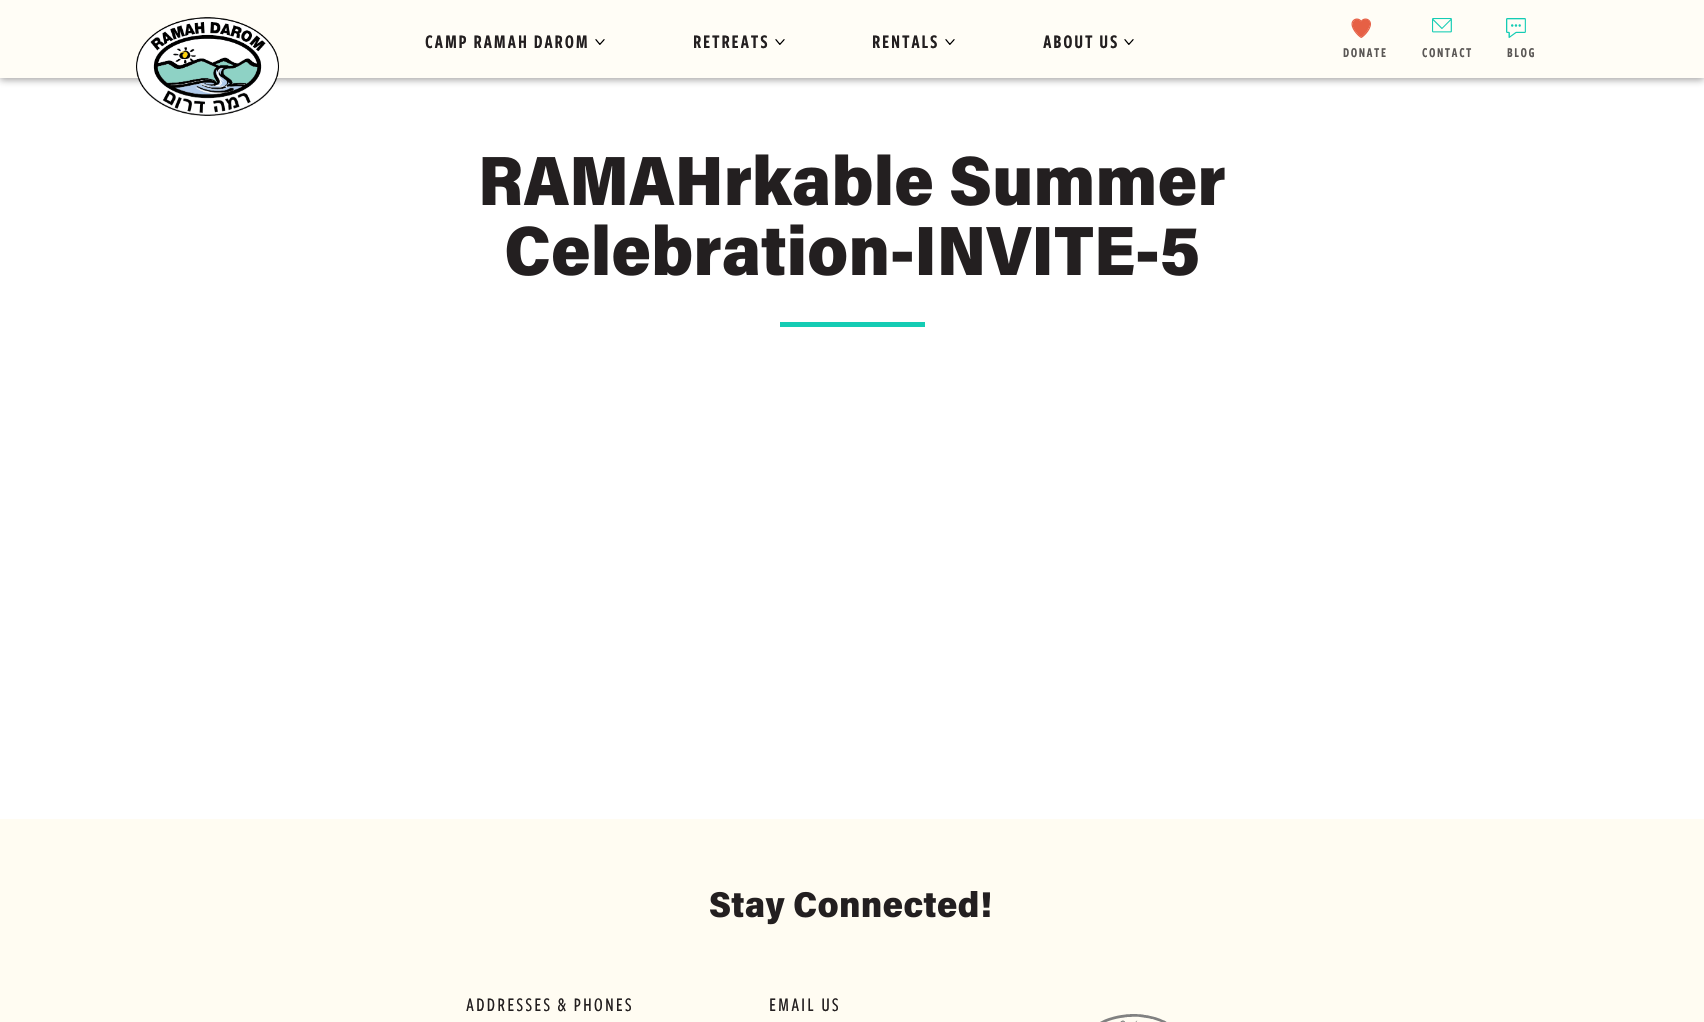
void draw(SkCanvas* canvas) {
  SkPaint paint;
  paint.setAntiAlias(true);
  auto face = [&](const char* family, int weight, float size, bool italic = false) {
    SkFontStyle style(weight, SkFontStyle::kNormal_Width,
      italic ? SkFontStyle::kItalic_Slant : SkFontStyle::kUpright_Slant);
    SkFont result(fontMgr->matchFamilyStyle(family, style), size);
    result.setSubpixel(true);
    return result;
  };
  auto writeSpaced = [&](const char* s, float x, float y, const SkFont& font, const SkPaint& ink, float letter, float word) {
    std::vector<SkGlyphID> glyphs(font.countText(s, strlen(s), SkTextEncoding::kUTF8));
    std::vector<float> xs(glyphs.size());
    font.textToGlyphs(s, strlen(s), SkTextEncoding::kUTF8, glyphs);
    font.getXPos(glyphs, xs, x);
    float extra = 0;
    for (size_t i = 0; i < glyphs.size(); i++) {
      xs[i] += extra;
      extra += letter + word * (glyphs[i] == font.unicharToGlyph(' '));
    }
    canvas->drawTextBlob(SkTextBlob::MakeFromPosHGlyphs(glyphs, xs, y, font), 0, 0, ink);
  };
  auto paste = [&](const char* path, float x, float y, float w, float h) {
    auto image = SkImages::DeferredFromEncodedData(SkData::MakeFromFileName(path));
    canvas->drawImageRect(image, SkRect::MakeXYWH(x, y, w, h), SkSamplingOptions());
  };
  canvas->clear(0xffffffff);
  paint.setColor(0x69231f20);
  paint.setMaskFilter(SkMaskFilter::MakeBlur(kNormal_SkBlurStyle, 3.5f));
  canvas->drawRect(SkRect::MakeXYWH(0, 2, 1704, 78), paint);
  paint.setMaskFilter(nullptr);
  paint.setColor(0xfffffdf6);
  canvas->drawRect(SkRect::MakeXYWH(0, 0, 1704, 78), paint);
  paste("img/1.png", 136, 17, 143, 99);
  paste("img/2.png", 595, 39, 10, 6);
  paste("img/2.png", 775, 39, 10, 6);
  paste("img/2.png", 945, 39, 10, 6);
  paste("img/2.png", 1124, 39, 10, 6);
  paste("img/3.png", 1351, 18, 20, 20);
  paste("img/4.png", 1432, 18, 20, 15);
  paste("img/5.png", 1506, 18, 20, 20);
  paste("img/6.png", 482, 154, 743, 52);
  paste("img/7.png", 506, 224, 692, 52);
  paint.setColor(0xff14ccb4);
  canvas->drawRect(SkRect::MakeXYWH(780, 322, 145, 5), paint);
  paint.setColor(0xfffffcf2);
  canvas->drawRect(SkRect::MakeXYWH(0, 819, 1704, 203), paint);
  paste("img/8.png", 710, 891, 280, 34);
  paste("img/9.png", 1100, 1014, 67, 8);
  auto f0 = face("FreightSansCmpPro", 600, 20);
  paint.setColor(0xff231f20);
  {
    const struct { const char* s; float x, y; } items[] = {
      {"CAMP RAMAH DAROM", 425, 48},
      {"RETREATS", 693, 48},
      {"RENTALS", 872, 48},
      {"ABOUT US", 1043, 48},
    };
    for (auto [s, x, y] : items) {
      writeSpaced(s, x, y, f0, paint, 1.75f, 0);
    }
  }
  auto f1 = face("FreightSansCmpPro", 600, 14);
  paint.setColor(0xff5a5755);
  {
    const struct { const char* s; float x, y; } items[] = {
      {"DONATE", 1343, 57},
      {"CONTACT", 1422, 57},
      {"BLOG", 1507, 57},
    };
    for (auto [s, x, y] : items) {
      writeSpaced(s, x, y, f1, paint, 1.5f, 0);
    }
  }
  auto f2 = face("FreightSansCmpPro", 500, 20);
  paint.setColor(0xff231f20);
  writeSpaced("ADDRESSES & PHONES", 466, 1011, f2, paint, 2, 0);
  writeSpaced("EMAIL US", 769, 1011, f2, paint, 2, 0);
}
